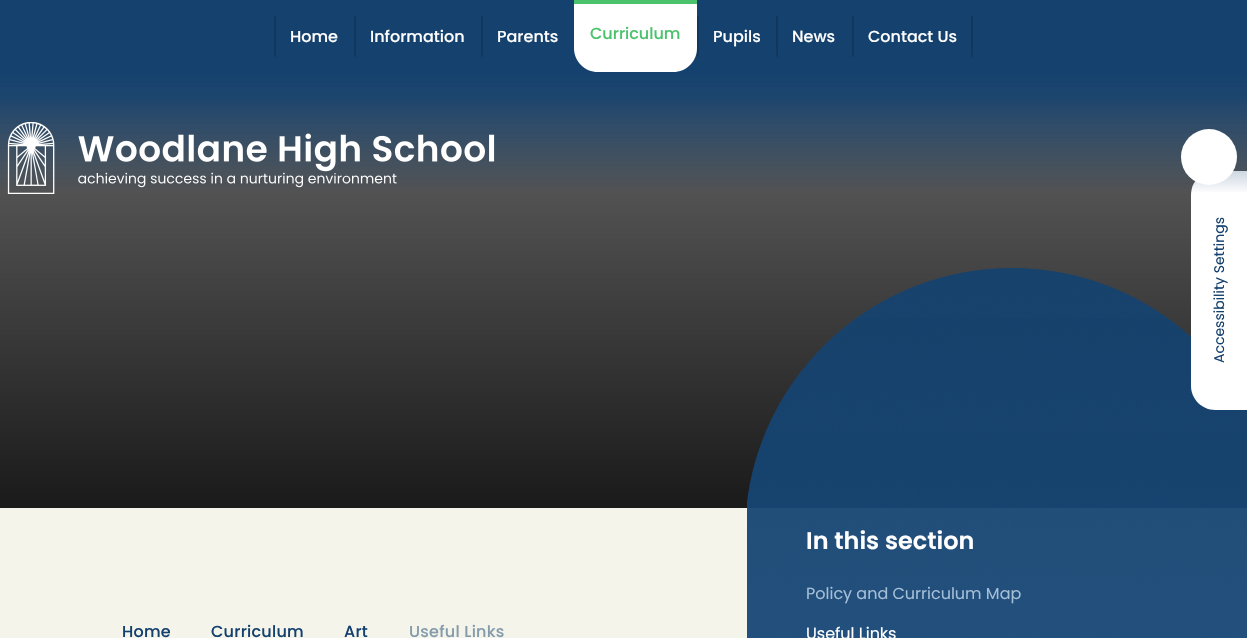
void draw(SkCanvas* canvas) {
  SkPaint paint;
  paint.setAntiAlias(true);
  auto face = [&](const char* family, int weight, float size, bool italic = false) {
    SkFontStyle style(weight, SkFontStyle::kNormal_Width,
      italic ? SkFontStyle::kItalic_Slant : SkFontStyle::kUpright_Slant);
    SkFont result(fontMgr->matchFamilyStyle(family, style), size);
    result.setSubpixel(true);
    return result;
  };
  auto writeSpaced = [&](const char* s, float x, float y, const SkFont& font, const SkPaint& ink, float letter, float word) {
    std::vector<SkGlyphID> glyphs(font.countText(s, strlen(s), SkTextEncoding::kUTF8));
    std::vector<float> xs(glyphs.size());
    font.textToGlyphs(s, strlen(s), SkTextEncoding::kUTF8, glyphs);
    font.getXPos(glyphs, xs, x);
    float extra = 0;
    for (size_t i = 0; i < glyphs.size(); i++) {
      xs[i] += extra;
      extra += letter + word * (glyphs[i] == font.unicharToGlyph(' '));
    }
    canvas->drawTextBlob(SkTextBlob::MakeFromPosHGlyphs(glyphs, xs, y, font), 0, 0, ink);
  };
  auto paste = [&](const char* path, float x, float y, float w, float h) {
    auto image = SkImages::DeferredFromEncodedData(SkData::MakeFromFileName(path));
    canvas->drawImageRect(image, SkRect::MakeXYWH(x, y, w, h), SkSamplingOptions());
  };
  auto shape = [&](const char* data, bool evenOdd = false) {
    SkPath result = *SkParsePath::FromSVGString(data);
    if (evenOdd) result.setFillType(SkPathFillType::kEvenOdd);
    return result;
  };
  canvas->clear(0xfff4f4ea);
  paint.setColor(0xff14416e);
  canvas->drawRect(SkRect::MakeXYWH(0, 0, 1247, 72), paint);
  canvas->save();
  canvas->clipPath(shape("M274 0H354V52C354 63 345 72 334 72H294C283 72 274 63 274 52Z"), true);
  paint.setColor(0xff11375e);
  canvas->drawRect(SkRect::MakeXYWH(274, 16, 2, 41), paint);
  canvas->restore();
  canvas->save();
  canvas->clipPath(shape("M354 0H481V52C481 63 472 72 461 72H374C363 72 354 63 354 52Z"), true);
  canvas->drawRect(SkRect::MakeXYWH(354, 16, 2, 41), paint);
  canvas->restore();
  canvas->save();
  canvas->clipPath(shape("M481 0H574V52C574 63 565 72 554 72H501C490 72 481 63 481 52Z"), true);
  canvas->drawRect(SkRect::MakeXYWH(481, 16, 2, 41), paint);
  canvas->restore();
  paint.setColor(0xffffffff);
  canvas->drawPath(shape("M574 0H697V48C697 61.5 686.5 72 673 72H598C584.5 72 574 61.5 574 48Z"), paint);
  paint.setColor(0xff4bc26c);
  canvas->drawRect(SkRect::MakeXYWH(574, 0, 123, 4), paint);
  canvas->save();
  canvas->clipPath(shape("M697 0H776V52C776 63 767 72 756 72H717C706 72 697 63 697 52Z"), true);
  paint.setColor(0xff11375e);
  canvas->drawRect(SkRect::MakeXYWH(697, 16, 2, 41), paint);
  canvas->restore();
  canvas->save();
  canvas->clipPath(shape("M776 0H852V52C852 63 843 72 832 72H796C785 72 776 63 776 52Z"), true);
  canvas->drawRect(SkRect::MakeXYWH(776, 16, 2, 41), paint);
  canvas->restore();
  canvas->save();
  canvas->clipPath(shape("M852 0H973V52C973 63 964 72 953 72H872C861 72 852 63 852 52Z"), true);
  canvas->drawRect(SkRect::MakeXYWH(852, 16, 2, 41), paint);
  canvas->drawRect(SkRect::MakeXYWH(971, 16, 2, 41), paint);
  canvas->restore();
  {
    const SkColor colors[] = {0xff676767, 0xff1a1a1a};
    const float stops[] = {0, 1};
    const SkPoint ends[] = {{624, 72}, {624, 508}};
    paint.setShader(SkGradientShader::MakeLinear(ends, colors, stops, 2, SkTileMode::kClamp));
    paint.setAlpha(255);
  }
  canvas->drawRect(SkRect::MakeXYWH(0, 73, 1247, 435), paint);
  paste("img/2.png", 747, 268, 500, 370);
  paint.setShader(nullptr);
  paint.setColor(0xffffffff);
  canvas->drawPath(shape("M1191 386V195C1191 181 1202 171 1215 171H1247V410H1215C1202 410 1191 399 1191 386Z"), paint);
  {
    const SkColor colors[] = {0x0014416e, 0xe614416e, 0xff14416e};
    const float stops[] = {0, 0.8f, 1};
    const SkPoint ends[] = {{624, 194}, {624, 72}};
    paint.setShader(SkGradientShader::MakeLinear(ends, colors, stops, 3, SkTileMode::kClamp));
    paint.setAlpha(255);
  }
  canvas->drawRect(SkRect::MakeXYWH(0, 72, 1247, 120), paint);
  paint.setShader(nullptr);
  paint.setColor(0xffffffff);
  canvas->drawCircle(1209, 157, 28, paint);
  paste("img/1.png", 7, 122, 488, 72);
  auto f0 = face("Poppins", 500, 16);
  {
    const struct { const char* s; float x, y; } items[] = {
      {"Home", 290, 42},
      {"Information", 370, 42},
      {"Parents", 497, 42},
    };
    for (auto [s, x, y] : items) {
      canvas->drawString(s, x, y, f0, paint);
    }
  }
  paint.setColor(0xff4bc26c);
  canvas->drawString("Curriculum", 590, 39, f0, paint);
  paint.setColor(0xffffffff);
  {
    const struct { const char* s; float x, y; } items[] = {
      {"Pupils", 713, 42},
      {"News", 792, 42},
      {"Contact Us", 868, 42},
    };
    for (auto [s, x, y] : items) {
      canvas->drawString(s, x, y, f0, paint);
    }
  }
  auto f1 = face("Poppins", 400, 14);
  paint.setColor(0xff14416e);
  canvas->save();
  canvas->rotate(-90, 1224, 363);
  canvas->drawString("Accessibility Settings", 1224, 363, f1, paint);
  canvas->restore();
  {
    const struct { const char* s; float x, y; } items[] = {
      {"Home", 122, 637},
      {"Curriculum", 211, 637},
      {"Art", 344, 637},
    };
    for (auto [s, x, y] : items) {
      writeSpaced(s, x, y, f0, paint, 0.25f, 0);
    }
  }
  paint.setColor(0xff849bac);
  writeSpaced("Useful Links", 409, 637, f0, paint, 0.25f, 0);
  auto f2 = face("Poppins", 600, 24);
  paint.setColor(0xffffffff);
  canvas->drawString("In this section", 806, 549, f2, paint);
  auto f3 = face("Poppins", 400, 16);
  paint.setColor(0xffa4bfd8);
  canvas->drawString("Policy and Curriculum Map", 806, 599, f3, paint);
  paint.setColor(0xffffffff);
  canvas->drawString("Useful Links", 806, 639, f3, paint);
}
